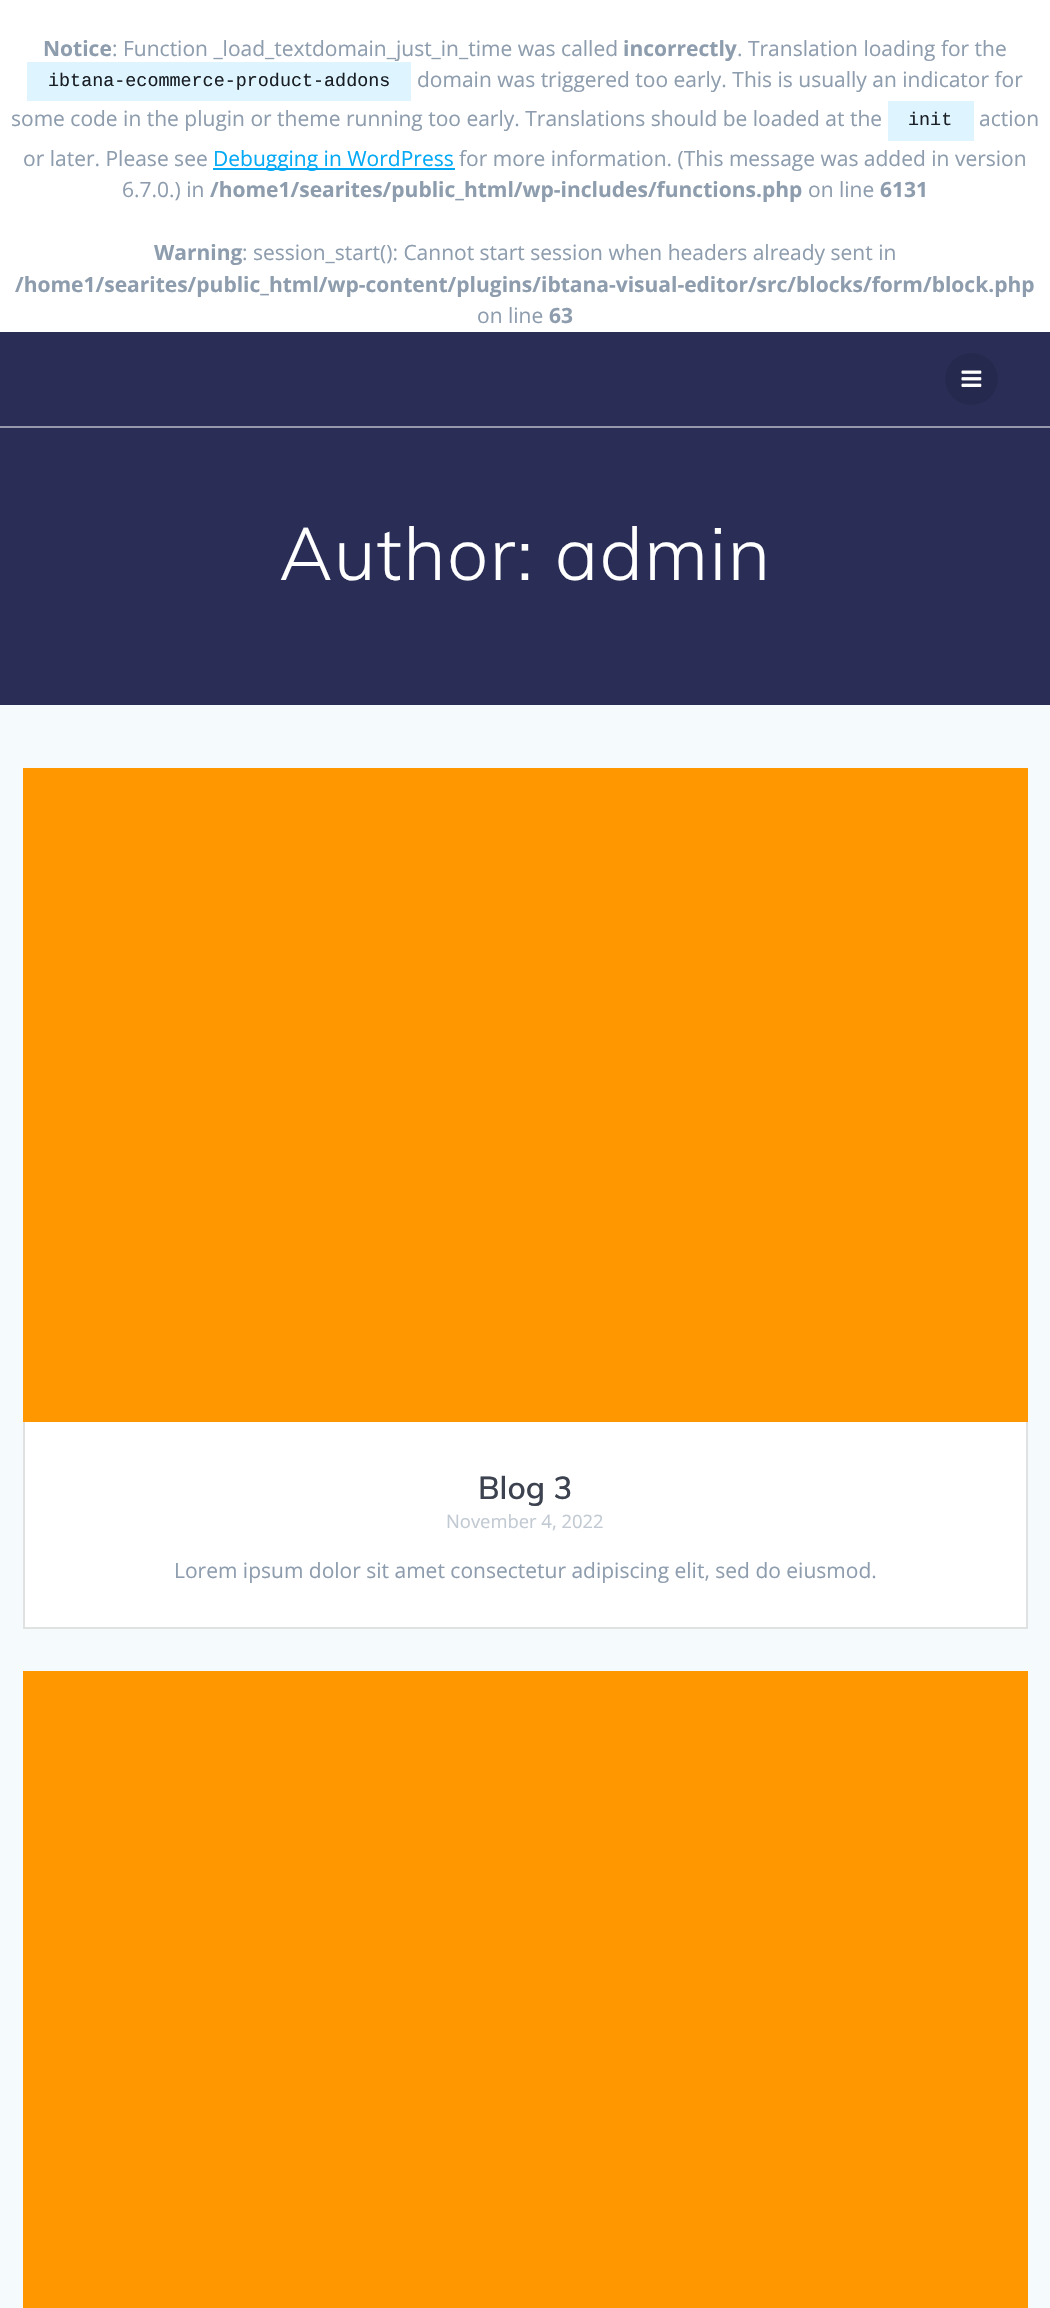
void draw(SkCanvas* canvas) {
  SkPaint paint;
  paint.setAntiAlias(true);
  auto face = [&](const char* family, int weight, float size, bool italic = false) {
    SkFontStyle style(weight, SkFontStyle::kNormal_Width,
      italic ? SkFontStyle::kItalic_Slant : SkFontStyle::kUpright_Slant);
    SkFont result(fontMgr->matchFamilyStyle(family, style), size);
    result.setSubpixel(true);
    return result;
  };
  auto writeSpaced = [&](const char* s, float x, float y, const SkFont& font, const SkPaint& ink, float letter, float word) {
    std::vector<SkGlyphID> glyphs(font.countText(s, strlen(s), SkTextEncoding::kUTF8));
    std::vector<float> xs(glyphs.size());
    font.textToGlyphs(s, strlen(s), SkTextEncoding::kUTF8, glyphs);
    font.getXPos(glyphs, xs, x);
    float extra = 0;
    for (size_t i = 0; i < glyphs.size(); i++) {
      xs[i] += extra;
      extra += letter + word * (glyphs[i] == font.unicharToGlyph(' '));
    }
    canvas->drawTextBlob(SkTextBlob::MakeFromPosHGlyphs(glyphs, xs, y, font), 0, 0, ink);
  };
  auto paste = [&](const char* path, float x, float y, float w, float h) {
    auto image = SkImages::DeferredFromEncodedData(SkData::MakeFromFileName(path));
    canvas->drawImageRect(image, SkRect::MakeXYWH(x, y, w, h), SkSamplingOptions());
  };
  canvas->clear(0xffffffff);
  {
    const struct { float x, y, w, h; SkColor color; } items[] = {
      {27, 62, 384, 39, 0xffdef4ff},
      {888, 101, 86, 40, 0xffdef4ff},
      {213, 168, 242, 2, 0xff03a9f4},
      {0, 332, 1050, 373, 0xff2a2e57},
      {0, 426, 1050, 2, 0xff9597ab},
    };
    for (auto [x, y, w, h, color] : items) {
      paint.setColor(color);
      canvas->drawRect(SkRect::MakeXYWH(x, y, w, h), paint);
    }
  }
  paint.setColor(0xff26294e);
  canvas->drawRoundRect(SkRect::MakeXYWH(945, 353, 53, 52), 26, 26, paint);
  paste("img/1.png", 961, 370, 21, 17);
  paint.setColor(0xfff5fafd);
  canvas->drawRect(SkRect::MakeXYWH(0, 705, 1050, 1603), paint);
  paint.setColor(0xffffffff);
  canvas->drawRect(SkRect::MakeXYWH(25, 1422, 1001, 205), paint);
  paint.setStroke(true);
  paint.setStrokeWidth(2);
  paint.setColor(0xffe0e1e1);
  canvas->drawRect(SkRect::MakeXYWH(24, 769, 1003, 859), paint);
  paint.setStroke(false);
  paint.setColor(0xffff9800);
  canvas->drawRect(SkRect::MakeXYWH(23, 768, 1005, 654), paint);
  canvas->drawRect(SkRect::MakeXYWH(23, 1671, 1005, 637), paint);
  auto f0 = face("Open Sans", 700, 21);
  paint.setColor(0xff8e9dae);
  canvas->drawString("Notice", 43, 56, f0, paint);
  auto f1 = face("Open Sans", 400, 21);
  canvas->drawString(": Function _load_textdomain_just_in_time was called", 112, 56, f1, paint);
  canvas->drawString("incorrectly", 623, 56, f0, paint);
  canvas->drawString(". Translation loading for the", 737, 56, f1, paint);
  auto f2 = face("Liberation Mono", 400, 18.4f);
  paint.setColor(0xff191e24);
  canvas->drawString("ibtana-ecommerce-product-addons", 48, 86, f2, paint);
  paint.setColor(0xff8e9dae);
  canvas->drawString("domain was triggered too early. This is usually an indicator for", 417, 87, f1, paint);
  canvas->drawString("some code in the plugin or theme running too early. Translations should be loaded at the", 11, 126, f1, paint);
  paint.setColor(0xff191e24);
  canvas->drawString("init", 908, 125, f2, paint);
  paint.setColor(0xff8e9dae);
  canvas->drawString("action", 979, 126, f1, paint);
  canvas->drawString("or later. Please see", 23, 166, f1, paint);
  paint.setColor(0xff03a9f4);
  canvas->drawString("Debugging in WordPress", 213, 166, f1, paint);
  paint.setColor(0xff8e9dae);
  canvas->drawString("for more information. (This message was added in version", 459, 166, f1, paint);
  canvas->drawString("6.7.0.) in", 122, 197, f1, paint);
  canvas->drawString("/home1/searites/public_html/wp-includes/functions.php", 210, 197, f0, paint);
  canvas->drawString("on line", 808, 197, f1, paint);
  canvas->drawString("6131", 880, 197, f0, paint);
  canvas->drawString("Warning", 154, 260, f0, paint);
  canvas->drawString(": session_start(): Cannot start session when headers already sent in", 242, 260, f1, paint);
  canvas->drawString("/home1/searites/public_html/wp-content/plugins/ibtana-visual-editor/src/blocks/form/block.php", 15, 292, f0, paint);
  canvas->drawString("on line", 477, 323, f1, paint);
  canvas->drawString("63", 549, 323, f0, paint);
  auto f3 = face("Muli", 300, 73.5f);
  paint.setColor(0xffffffff);
  writeSpaced("Author: admin", 279, 580, f3, paint, 1.4f, 0);
  auto f4 = face("Muli", 600, 31.5f);
  paint.setColor(0xff3c424f);
  canvas->drawString("Blog 3", 478, 1499, f4, paint);
  auto f5 = face("Open Sans", 400, 18.4f);
  paint.setColor(0xffc1c9d2);
  canvas->drawString("November 4, 2022", 446, 1528, f5, paint);
  paint.setColor(0xff8e9dae);
  canvas->drawString("Lorem ipsum dolor sit amet consectetur adipiscing elit, sed do eiusmod.", 174, 1578, f1, paint);
}
